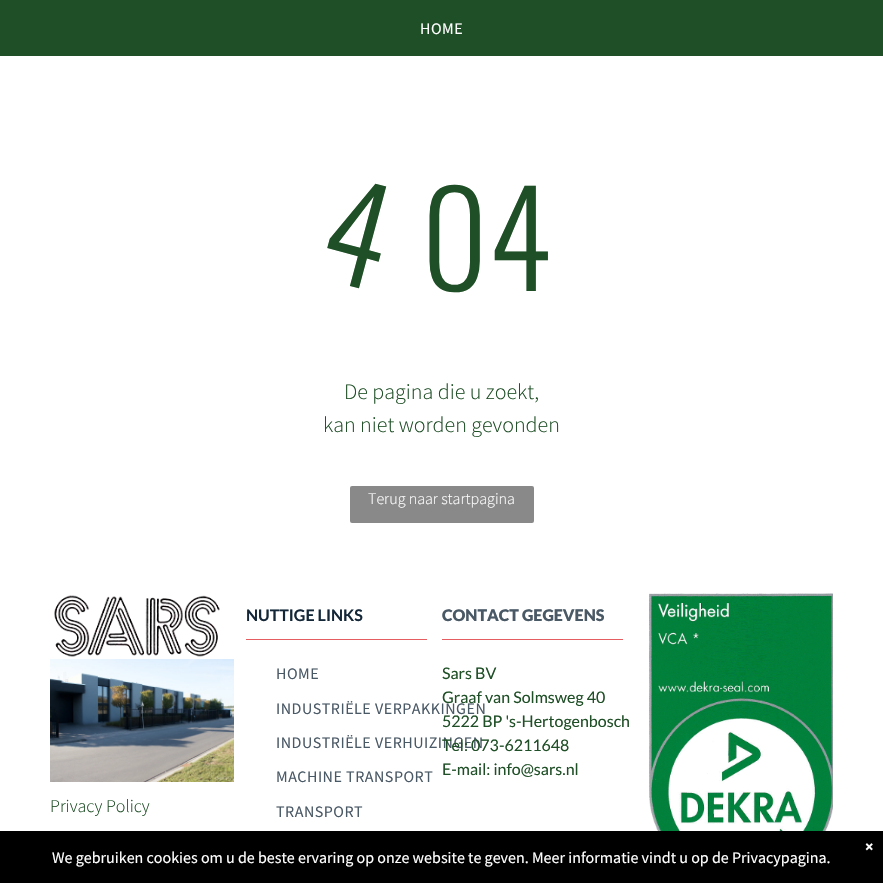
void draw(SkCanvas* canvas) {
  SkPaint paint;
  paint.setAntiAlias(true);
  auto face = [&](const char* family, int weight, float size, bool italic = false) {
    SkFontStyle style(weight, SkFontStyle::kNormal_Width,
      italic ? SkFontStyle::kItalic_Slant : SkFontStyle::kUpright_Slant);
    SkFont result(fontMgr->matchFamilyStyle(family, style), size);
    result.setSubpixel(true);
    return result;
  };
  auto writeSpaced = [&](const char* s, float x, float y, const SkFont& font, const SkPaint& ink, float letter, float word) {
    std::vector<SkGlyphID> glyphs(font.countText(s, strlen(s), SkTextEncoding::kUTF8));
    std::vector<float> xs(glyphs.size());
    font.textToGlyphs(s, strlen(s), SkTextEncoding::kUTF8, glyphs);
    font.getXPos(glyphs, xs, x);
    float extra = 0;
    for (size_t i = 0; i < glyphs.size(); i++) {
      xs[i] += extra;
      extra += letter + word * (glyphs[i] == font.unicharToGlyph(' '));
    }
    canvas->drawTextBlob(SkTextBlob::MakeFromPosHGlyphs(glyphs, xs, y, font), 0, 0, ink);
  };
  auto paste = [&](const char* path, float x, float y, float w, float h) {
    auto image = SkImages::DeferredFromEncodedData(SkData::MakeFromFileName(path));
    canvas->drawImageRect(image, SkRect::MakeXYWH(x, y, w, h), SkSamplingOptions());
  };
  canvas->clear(0xffffffff);
  paint.setColor(0xff1f4f26);
  canvas->drawRect(SkRect::MakeXYWH(0, 0, 883, 56), paint);
  paint.setColor(0xff898989);
  canvas->drawRoundRect(SkRect::MakeXYWH(350, 486, 184, 37), 2, 2, paint);
  paint.setColor(0xffe65d61);
  canvas->drawRect(SkRect::MakeXYWH(246, 639, 181, 1), paint);
  canvas->drawRect(SkRect::MakeXYWH(442, 639, 181, 1), paint);
  paste("img/1.png", 649, 593, 184, 238);
  paste("img/2.png", 54, 595, 166, 62);
  paste("img/3.png", 50, 659, 184, 123);
  paint.setColor(0xff000000);
  canvas->drawRect(SkRect::MakeXYWH(0, 831, 883, 52), paint);
  auto f0 = face("Source Sans Pro", 400, 16);
  paint.setColor(0xffffffff);
  writeSpaced("HOME", 420, 34, f0, paint, 0.5f, 0);
  auto f1 = face("Oswald", 300, 130);
  paint.setColor(0xff1f4f26);
  canvas->save();
  canvas->rotate(15, 313, 276);
  canvas->drawString("4", 313, 276, f1, paint);
  canvas->restore();
  canvas->drawString("04", 421, 291, f1, paint);
  auto f2 = face("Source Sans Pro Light", 300, 22);
  canvas->drawString("De pagina die u zoekt,", 344, 399, f2, paint);
  canvas->drawString("kan niet worden gevonden", 323, 432, f2, paint);
  auto f3 = face("Source Sans Pro Light", 300, 16);
  paint.setColor(0xffffffff);
  canvas->drawString("Terug naar startpagina", 368, 504, f3, paint);
  auto f4 = face("Lato", 700, 16);
  paint.setColor(0xff132738);
  canvas->drawString("NUTTIGE LINKS", 246, 621, f4, paint);
  paint.setColor(0xff4a5966);
  {
    const struct { const char* s; float x, y; } items[] = {
      {"HOME", 276, 679},
      {"INDUSTRIËLE VERPAKKINGEN", 276, 714},
      {"INDUSTRIËLE VERHUIZINGEN", 276, 748},
      {"MACHINE TRANSPORT", 276, 782},
      {"TRANSPORT", 276, 817},
    };
    for (auto [s, x, y] : items) {
      writeSpaced(s, x, y, f0, paint, 0.5f, 0);
    }
  }
  auto f5 = face("Lato", 900, 16);
  canvas->drawString("CONTACT GEGEVENS", 442, 621, f5, paint);
  auto f6 = face("Lato", 400, 16);
  paint.setColor(0xff1f4f26);
  {
    const struct { const char* s; float x, y; } items[] = {
      {"Sars BV", 442, 679},
      {"Graaf van Solmsweg 40", 442, 703},
      {"5222 BP 's-Hertogenbosch", 442, 727},
      {"Tel: 073-6211648", 442, 751},
      {"E-mail: info@sars.nl", 442, 775},
    };
    for (auto [s, x, y] : items) {
      canvas->drawString(s, x, y, f6, paint);
    }
  }
  auto f7 = face("Source Sans Pro Light", 300, 18);
  canvas->drawString("Privacy Policy", 50, 812, f7, paint);
  auto f8 = face("Source Sans Pro", 700, 16);
  paint.setColor(0xffffffff);
  canvas->drawString("×", 865, 852, f8, paint);
  canvas->drawString("We gebruiken cookies om u de beste ervaring op onze website te geven. Meer informatie vindt u op de Privacypagina.", 52, 863, f0, paint);
}
